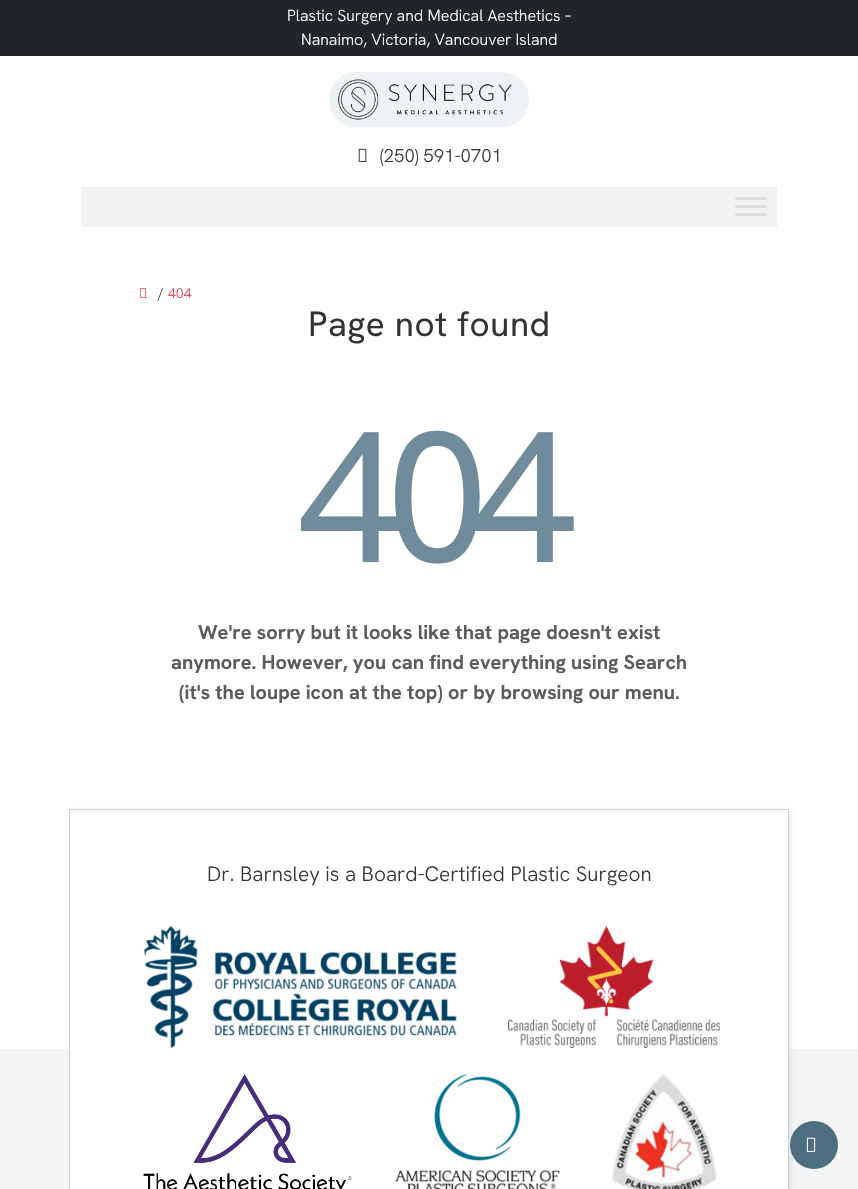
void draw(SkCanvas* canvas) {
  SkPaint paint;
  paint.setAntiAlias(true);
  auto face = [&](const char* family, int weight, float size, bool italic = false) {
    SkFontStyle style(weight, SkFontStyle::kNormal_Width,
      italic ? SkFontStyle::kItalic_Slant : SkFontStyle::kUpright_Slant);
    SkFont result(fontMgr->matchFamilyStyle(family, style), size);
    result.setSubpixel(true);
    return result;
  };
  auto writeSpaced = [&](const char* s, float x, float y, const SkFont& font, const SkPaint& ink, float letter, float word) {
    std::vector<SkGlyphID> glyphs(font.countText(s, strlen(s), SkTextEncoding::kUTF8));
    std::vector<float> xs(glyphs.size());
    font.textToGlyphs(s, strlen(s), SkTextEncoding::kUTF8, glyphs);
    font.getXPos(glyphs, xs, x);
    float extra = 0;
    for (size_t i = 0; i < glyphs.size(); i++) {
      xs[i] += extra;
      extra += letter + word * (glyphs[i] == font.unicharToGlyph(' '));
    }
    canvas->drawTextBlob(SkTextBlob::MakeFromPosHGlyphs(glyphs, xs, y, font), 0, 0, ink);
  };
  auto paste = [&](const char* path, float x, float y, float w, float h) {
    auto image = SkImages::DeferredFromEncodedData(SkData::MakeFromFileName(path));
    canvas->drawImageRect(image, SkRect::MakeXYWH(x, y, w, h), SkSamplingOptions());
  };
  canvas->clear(0xffffffff);
  paint.setColor(0xff212529);
  canvas->drawRect(SkRect::MakeXYWH(0, 0, 858, 56), paint);
  paste("img/1.png", 329, 72, 200, 55);
  paste("img/2.png", 358, 148, 9, 14);
  paint.setColor(0xfff2f2f2);
  canvas->drawRect(SkRect::MakeXYWH(81, 187, 696, 40), paint);
  paint.setColor(0xffdddddd);
  canvas->drawRoundRect(SkRect::MakeXYWH(735, 197, 32, 3), 1.5f, 1.5f, paint);
  canvas->drawRoundRect(SkRect::MakeXYWH(735, 205, 32, 3), 1.5f, 1.5f, paint);
  canvas->drawRoundRect(SkRect::MakeXYWH(735, 213, 32, 3), 1.5f, 1.5f, paint);
  paste("img/3.png", 140, 288, 7, 10);
  paint.setColor(0xfff2f4f5);
  canvas->drawRect(SkRect::MakeXYWH(0, 1049, 858, 140), paint);
  paint.setColor(0x12000000);
  paint.setMaskFilter(SkMaskFilter::MakeBlur(kNormal_SkBlurStyle, 2));
  canvas->drawRect(SkRect::MakeXYWH(71, 811, 720, 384), paint);
  paint.setMaskFilter(nullptr);
  paint.setColor(0xffffffff);
  canvas->drawRect(SkRect::MakeXYWH(69.5f, 809.5f, 719, 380), paint);
  paint.setStroke(true);
  paint.setStrokeWidth(1);
  paint.setColor(0xffcccccc);
  canvas->drawRect(SkRect::MakeXYWH(69.5f, 809.5f, 719, 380), paint);
  paste("img/4.png", 144, 925, 576, 124);
  paste("img/5.png", 143, 1074, 574, 115);
  paint.setStroke(false);
  paint.setColor(0xff4c6e7f);
  canvas->drawCircle(814, 1145, 24, paint);
  paste("img/6.png", 806, 1137, 10, 15);
  auto f0 = face("Hanken Grotesk", 300, 16);
  paint.setColor(0xffffffff);
  canvas->drawString("Plastic Surgery and Medical Aesthetics –", 287, 21, f0, paint);
  canvas->drawString("Nanaimo, Victoria, Vancouver Island", 301, 45, f0, paint);
  auto f1 = face("Hanken Grotesk", 300, 18.5f);
  paint.setColor(0xff333333);
  canvas->drawString("(250) 591-0701", 380, 162, f1, paint);
  auto f2 = face("Hanken Grotesk", 300, 14);
  canvas->drawString("/", 158, 298, f2, paint);
  paint.setColor(0xffd9414e);
  canvas->drawString("404", 168, 298, f2, paint);
  auto f3 = face("Hanken Grotesk", 400, 35);
  paint.setColor(0xff333333);
  writeSpaced("Page not found", 308, 336, f3, paint, 0.5f, 0);
  auto f4 = face("Hanken Grotesk", 400, 186);
  paint.setColor(0xff708b99);
  writeSpaced("404", 298, 562, f4, paint, -17, 0);
  auto f5 = face("Hanken Grotesk", 700, 20);
  paint.setColor(0xff5c5c5c);
  {
    const struct { const char* s; float x, y; } items[] = {
      {"We're sorry but it looks like that page doesn't exist", 198, 639},
      {"anymore. However, you can find everything using Search", 171, 669},
      {"(it's the loupe icon at the top) or by browsing our menu.", 179, 699},
    };
    for (auto [s, x, y] : items) {
      canvas->drawString(s, x, y, f5, paint);
    }
  }
  auto f6 = face("Hanken Grotesk", 300, 20.8f);
  paint.setColor(0xff333333);
  canvas->drawString("Dr. Barnsley is a Board-Certified Plastic Surgeon", 207, 881, f6, paint);
}
